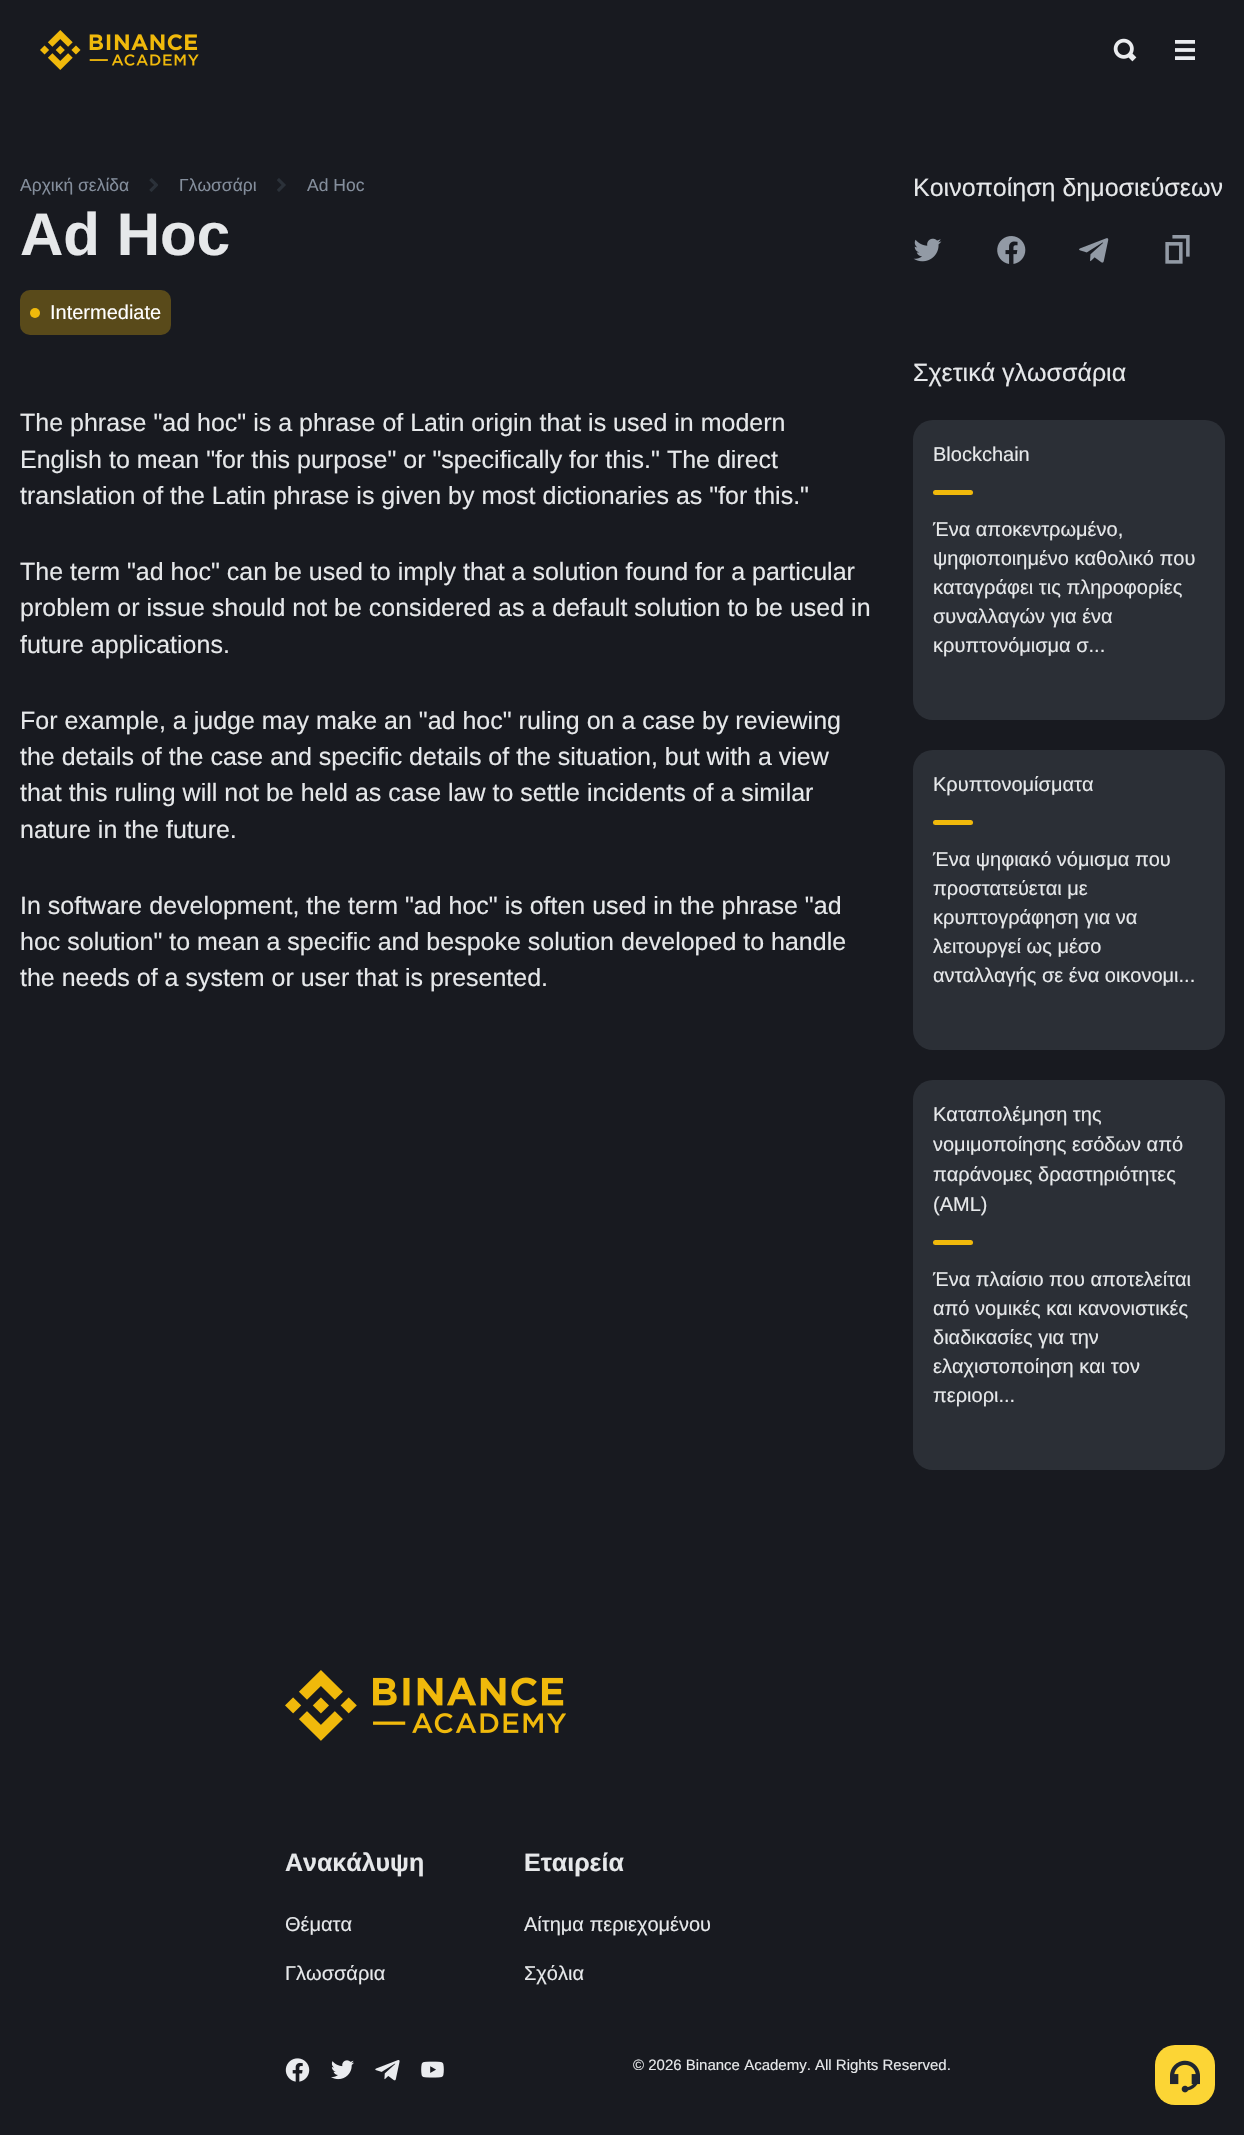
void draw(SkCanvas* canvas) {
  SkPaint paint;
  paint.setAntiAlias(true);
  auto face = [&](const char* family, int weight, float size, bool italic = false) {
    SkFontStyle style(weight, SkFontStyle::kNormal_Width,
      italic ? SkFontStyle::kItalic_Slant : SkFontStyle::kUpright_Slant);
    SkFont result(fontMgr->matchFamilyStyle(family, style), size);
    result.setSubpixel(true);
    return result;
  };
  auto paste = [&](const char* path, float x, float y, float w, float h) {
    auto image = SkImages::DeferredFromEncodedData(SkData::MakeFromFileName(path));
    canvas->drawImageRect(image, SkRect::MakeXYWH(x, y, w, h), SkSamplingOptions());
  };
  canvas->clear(0xff181a20);
  paste("img/1.png", 40, 30, 159, 40);
  paste("img/2.png", 1113, 38, 24, 24);
  paste("img/3.png", 1175, 40, 20, 20);
  paste("img/4.png", 149, 178, 9, 14);
  paste("img/5.png", 277, 178, 9, 14);
  paint.setColor(0xff594a1a);
  canvas->drawRoundRect(SkRect::MakeXYWH(20, 290, 151, 45), 10, 10, paint);
  paint.setColor(0xfff0b90b);
  canvas->drawCircle(35, 313, 5, paint);
  paste("img/6.png", 913, 238, 29, 24);
  paste("img/7.png", 997, 236, 29, 28);
  paste("img/8.png", 1079, 238, 30, 25);
  paste("img/9.png", 1165, 235, 25, 29);
  paint.setColor(0xff2b2f36);
  canvas->drawRoundRect(SkRect::MakeXYWH(913, 420, 312, 300), 20, 20, paint);
  paint.setColor(0xfff0b90b);
  canvas->drawRoundRect(SkRect::MakeXYWH(933, 490, 40, 5), 2.5f, 2.5f, paint);
  paint.setColor(0xff2b2f36);
  canvas->drawRoundRect(SkRect::MakeXYWH(913, 750, 312, 300), 20, 20, paint);
  paint.setColor(0xfff0b90b);
  canvas->drawRoundRect(SkRect::MakeXYWH(933, 820, 40, 5), 2.5f, 2.5f, paint);
  paint.setColor(0xff2b2f36);
  canvas->drawRoundRect(SkRect::MakeXYWH(913, 1080, 312, 390), 20, 20, paint);
  paint.setColor(0xfff0b90b);
  canvas->drawRoundRect(SkRect::MakeXYWH(933, 1240, 40, 5), 2.5f, 2.5f, paint);
  paste("img/10.png", 285, 1670, 281, 71);
  paste("img/11.png", 285, 2058, 25, 24);
  paste("img/12.png", 331, 2060, 23, 20);
  paste("img/13.png", 375, 2060, 25, 21);
  paste("img/14.png", 421, 2061, 23, 17);
  paint.setColor(0xfffcd535);
  canvas->drawRoundRect(SkRect::MakeXYWH(1155, 2045, 60, 60), 20, 20, paint);
  paste("img/15.png", 1170, 2060, 30, 33);
  auto f0 = face("Liberation Sans", 400, 17.5f);
  paint.setColor(0xff848e9c);
  {
    const struct { const char* s; float x, y; } items[] = {
      {"Αρχική σελίδα", 20, 191},
      {"Γλωσσάρι", 179, 191},
      {"Ad Hoc", 307, 191},
    };
    for (auto [s, x, y] : items) {
      canvas->drawString(s, x, y, f0, paint);
    }
  }
  auto f1 = face("Liberation Sans", 700, 60);
  paint.setColor(0xffe6e8ea);
  canvas->drawString("Ad Hoc", 20, 255, f1, paint);
  auto f2 = face("Liberation Sans", 400, 20);
  paint.setColor(0xffffffff);
  canvas->drawString("Intermediate", 50, 319, f2, paint);
  auto f3 = face("Liberation Sans", 400, 25);
  paint.setColor(0xffe6e8ea);
  {
    const struct { const char* s; float x, y; } items[] = {
      {"The phrase \"ad hoc\" is a phrase of Latin origin that is used in modern", 20, 431},
      {"English to mean \"for this purpose\" or \"specifically for this.\" The direct", 20, 468},
      {"translation of the Latin phrase is given by most dictionaries as \"for this.\"", 20, 504},
      {"The term \"ad hoc\" can be used to imply that a solution found for a particular", 20, 580},
      {"problem or issue should not be considered as a default solution to be used in", 20, 616},
      {"future applications.", 20, 653},
      {"For example, a judge may make an \"ad hoc\" ruling on a case by reviewing", 20, 729},
      {"the details of the case and specific details of the situation, but with a view", 20, 765},
      {"that this ruling will not be held as case law to settle incidents of a similar", 20, 801},
      {"nature in the future.", 20, 838},
      {"In software development, the term \"ad hoc\" is often used in the phrase \"ad", 20, 914},
      {"hoc solution\" to mean a specific and bespoke solution developed to handle", 20, 950},
      {"the needs of a system or user that is presented.", 20, 986},
      {"Κοινοποίηση δημοσιεύσεων", 913, 196},
      {"Σχετικά γλωσσάρια", 913, 381},
    };
    for (auto [s, x, y] : items) {
      canvas->drawString(s, x, y, f3, paint);
    }
  }
  {
    const struct { const char* s; float x, y; } items[] = {
      {"Blockchain", 933, 461},
      {"Ένα αποκεντρωμένο,", 933, 536},
      {"ψηφιοποιημένο καθολικό που", 933, 565},
      {"καταγράφει τις πληροφορίες", 933, 594},
      {"συναλλαγών για ένα", 933, 623},
      {"κρυπτονόμισμα σ...", 933, 652},
      {"Κρυπτονομίσματα", 933, 791},
      {"Ένα ψηφιακό νόμισμα που", 933, 866},
      {"προστατεύεται με", 933, 895},
      {"κρυπτογράφηση για να", 933, 924},
      {"λειτουργεί ως μέσο", 933, 953},
      {"ανταλλαγής σε ένα οικονομι...", 933, 982},
      {"Καταπολέμηση της", 933, 1121},
      {"νομιμοποίησης εσόδων από", 933, 1151},
      {"παράνομες δραστηριότητες", 933, 1181},
      {"(AML)", 933, 1211},
      {"Ένα πλαίσιο που αποτελείται", 933, 1286},
      {"από νομικές και κανονιστικές", 933, 1315},
      {"διαδικασίες για την", 933, 1344},
      {"ελαχιστοποίηση και τον", 933, 1373},
      {"περιορι...", 933, 1402},
    };
    for (auto [s, x, y] : items) {
      canvas->drawString(s, x, y, f2, paint);
    }
  }
  auto f4 = face("Liberation Sans", 700, 25);
  canvas->drawString("Ανακάλυψη", 285, 1871, f4, paint);
  canvas->drawString("Θέματα", 285, 1931, f2, paint);
  canvas->drawString("Γλωσσάρια", 285, 1980, f2, paint);
  canvas->drawString("Εταιρεία", 524, 1871, f4, paint);
  canvas->drawString("Αίτημα περιεχομένου", 524, 1931, f2, paint);
  canvas->drawString("Σχόλια", 524, 1980, f2, paint);
  auto f5 = face("Liberation Sans", 400, 15);
  canvas->drawString("© 2026 Binance Academy. All Rights Reserved.", 633, 2070, f5, paint);
}
